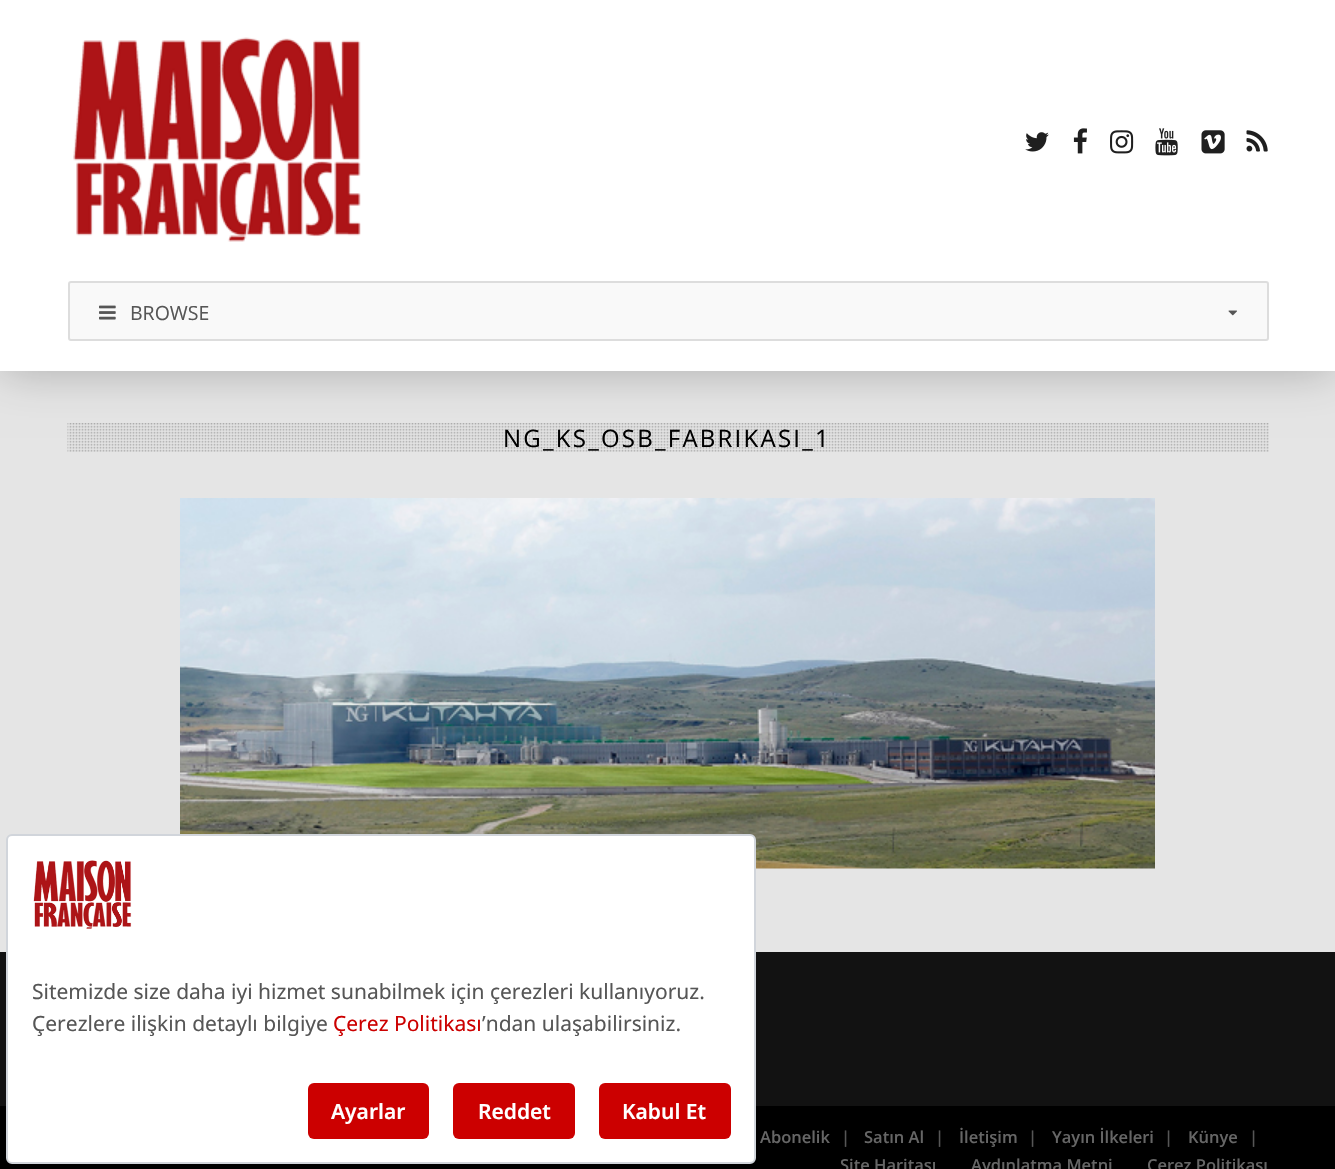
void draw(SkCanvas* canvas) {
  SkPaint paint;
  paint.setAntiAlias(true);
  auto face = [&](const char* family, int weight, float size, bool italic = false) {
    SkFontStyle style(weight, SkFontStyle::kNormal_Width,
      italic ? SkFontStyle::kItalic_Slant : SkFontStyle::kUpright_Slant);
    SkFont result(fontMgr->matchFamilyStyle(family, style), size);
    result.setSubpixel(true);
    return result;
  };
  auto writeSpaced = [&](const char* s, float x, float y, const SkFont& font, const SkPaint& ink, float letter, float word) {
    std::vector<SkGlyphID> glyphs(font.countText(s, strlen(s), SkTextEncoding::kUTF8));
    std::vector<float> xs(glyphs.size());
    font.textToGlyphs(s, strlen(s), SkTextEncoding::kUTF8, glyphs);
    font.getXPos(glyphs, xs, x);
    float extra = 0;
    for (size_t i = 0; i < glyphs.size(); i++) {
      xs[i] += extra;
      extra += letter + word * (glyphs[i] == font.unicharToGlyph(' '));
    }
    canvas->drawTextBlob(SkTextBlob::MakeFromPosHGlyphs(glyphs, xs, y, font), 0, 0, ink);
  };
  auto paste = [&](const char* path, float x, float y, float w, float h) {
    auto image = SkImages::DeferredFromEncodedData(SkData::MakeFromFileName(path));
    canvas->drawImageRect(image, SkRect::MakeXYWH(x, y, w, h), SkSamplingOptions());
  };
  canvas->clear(0xffe5e5e5);
  paint.setColor(0x40000000);
  paint.setMaskFilter(SkMaskFilter::MakeBlur(kNormal_SkBlurStyle, 22.5f));
  canvas->drawRect(SkRect::MakeXYWH(0, 0, 1335, 371), paint);
  paint.setMaskFilter(nullptr);
  paint.setColor(0xffffffff);
  canvas->drawRect(SkRect::MakeXYWH(0, 0, 1335, 371), paint);
  paste("img/1.png", 73, 37, 288, 205);
  paste("img/2.png", 1025, 132, 24, 20);
  paste("img/3.png", 1073, 128, 14, 26);
  paste("img/4.png", 1110, 130, 24, 24);
  paste("img/5.png", 1155, 128, 23, 28);
  paste("img/6.png", 1201, 130, 24, 24);
  paste("img/7.png", 1246, 130, 22, 22);
  paint.setColor(0xfff9f9f9);
  canvas->drawRoundRect(SkRect::MakeXYWH(69, 282, 1199, 58), 2, 2, paint);
  paint.setStroke(true);
  paint.setStrokeWidth(2);
  paint.setColor(0xffdddddd);
  canvas->drawRoundRect(SkRect::MakeXYWH(69, 282, 1199, 58), 2, 2, paint);
  paste("img/8.png", 99, 305, 17, 15);
  paste("img/9.png", 1228, 310, 9, 6);
  paste("img/10.png", 67, 423, 1202, 29);
  paste("img/11.png", 180, 498, 975, 371);
  paint.setStroke(false);
  paint.setColor(0xff121212);
  canvas->drawRect(SkRect::MakeXYWH(0, 952, 1335, 154), paint);
  paint.setColor(0xff000000);
  canvas->drawRect(SkRect::MakeXYWH(0, 1106, 1335, 63), paint);
  paint.setColor(0xffffffff);
  canvas->drawRoundRect(SkRect::MakeXYWH(7, 835, 748, 328), 5, 5, paint);
  paint.setStroke(true);
  paint.setColor(0xffd1d5db);
  canvas->drawRoundRect(SkRect::MakeXYWH(7, 835, 748, 328), 5, 5, paint);
  paste("img/12.png", 33, 860, 99, 69);
  paint.setStroke(false);
  paint.setColor(0xffcc0000);
  canvas->drawRoundRect(SkRect::MakeXYWH(308, 1083, 121, 56), 6, 6, paint);
  canvas->drawRoundRect(SkRect::MakeXYWH(453, 1083, 122, 56), 6, 6, paint);
  canvas->drawRoundRect(SkRect::MakeXYWH(599, 1083, 132, 56), 6, 6, paint);
  auto f0 = face("Open Sans", 400, 19.5f);
  paint.setColor(0xff565656);
  canvas->drawString("BROWSE", 130, 320, f0, paint);
  auto f1 = face("Open Sans", 400, 24);
  paint.setColor(0xff000000);
  writeSpaced("NG_KS_OSB_FABRIKASI_1", 503, 447, f1, paint, 2.25f, 0);
  auto f2 = face("Noto Sans", 400, 21);
  paint.setColor(0xff565656);
  canvas->drawString("Sitemizde size daha iyi hizmet sunabilmek için çerezleri kullanıyoruz.", 32, 999, f2, paint);
  canvas->drawString("Çerezlere ilişkin detaylı bilgiye", 32, 1031, f2, paint);
  paint.setColor(0xffcc0000);
  canvas->drawString("Çerez Politikası", 333, 1031, f2, paint);
  paint.setColor(0xff565656);
  canvas->drawString("’ndan ulaşabilirsiniz.", 482, 1031, f2, paint);
  auto f3 = face("Noto Sans", 600, 21);
  paint.setColor(0xffffffff);
  {
    const struct { const char* s; float x, y; } items[] = {
      {"Ayarlar", 331, 1119},
      {"Reddet", 478, 1119},
      {"Kabul Et", 622, 1119},
    };
    for (auto [s, x, y] : items) {
      canvas->drawString(s, x, y, f3, paint);
    }
  }
  auto f4 = face("Open Sans", 600, 16.5f);
  paint.setColor(0xff666666);
  canvas->drawString("Abonelik", 760, 1143, f4, paint);
  paint.setColor(0xff565656);
  canvas->drawString("|", 841, 1143, f4, paint);
  paint.setColor(0xff666666);
  canvas->drawString("Satın Al", 864, 1143, f4, paint);
  paint.setColor(0xff565656);
  canvas->drawString("|", 935, 1143, f4, paint);
  paint.setColor(0xff666666);
  canvas->drawString("İletişim", 959, 1143, f4, paint);
  paint.setColor(0xff565656);
  canvas->drawString("|", 1028, 1143, f4, paint);
  paint.setColor(0xff666666);
  canvas->drawString("Yayın İlkeleri", 1052, 1143, f4, paint);
  paint.setColor(0xff565656);
  canvas->drawString("|", 1164, 1143, f4, paint);
  paint.setColor(0xff666666);
  canvas->drawString("Künye", 1188, 1143, f4, paint);
  paint.setColor(0xff565656);
  canvas->drawString("|", 1249, 1143, f4, paint);
  paint.setColor(0xff666666);
  {
    const struct { const char* s; float x, y; } items[] = {
      {"Site Haritası", 840, 1171},
      {"Aydınlatma Metni", 971, 1171},
      {"Çerez Politikası", 1147, 1171},
    };
    for (auto [s, x, y] : items) {
      canvas->drawString(s, x, y, f4, paint);
    }
  }
}
